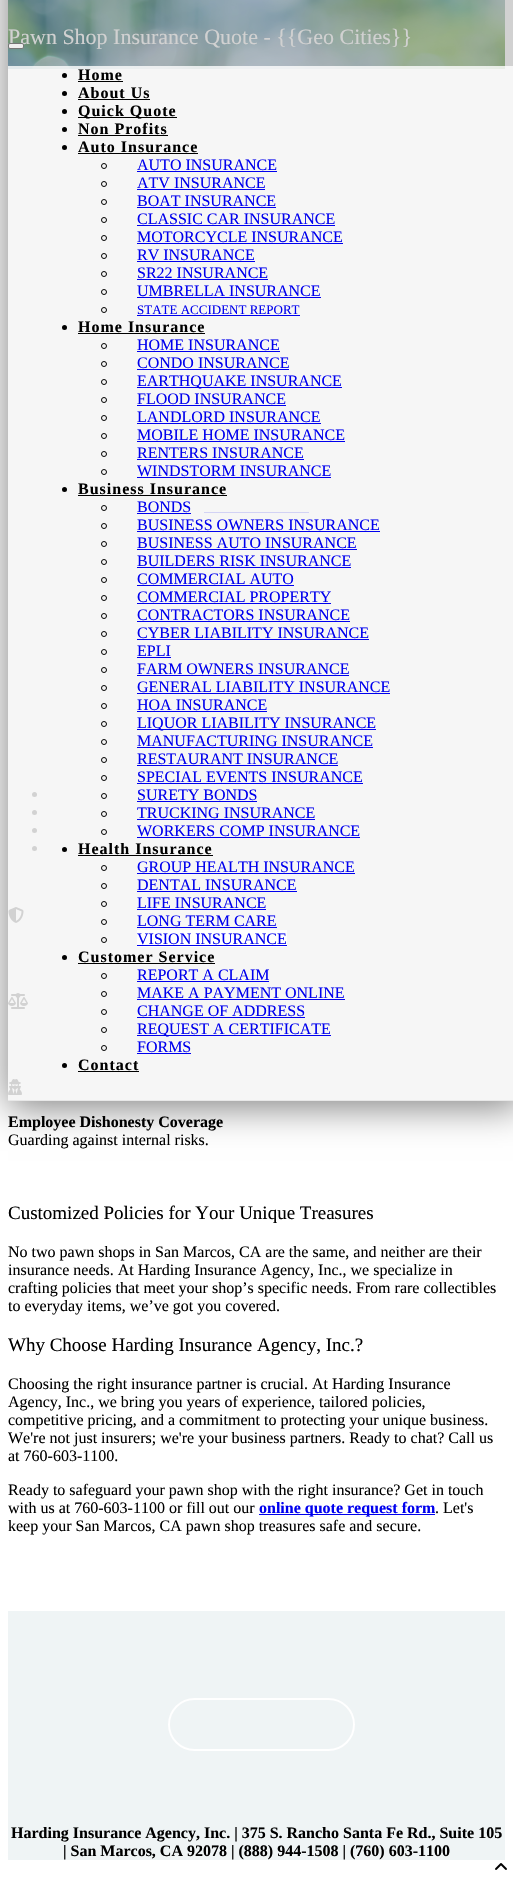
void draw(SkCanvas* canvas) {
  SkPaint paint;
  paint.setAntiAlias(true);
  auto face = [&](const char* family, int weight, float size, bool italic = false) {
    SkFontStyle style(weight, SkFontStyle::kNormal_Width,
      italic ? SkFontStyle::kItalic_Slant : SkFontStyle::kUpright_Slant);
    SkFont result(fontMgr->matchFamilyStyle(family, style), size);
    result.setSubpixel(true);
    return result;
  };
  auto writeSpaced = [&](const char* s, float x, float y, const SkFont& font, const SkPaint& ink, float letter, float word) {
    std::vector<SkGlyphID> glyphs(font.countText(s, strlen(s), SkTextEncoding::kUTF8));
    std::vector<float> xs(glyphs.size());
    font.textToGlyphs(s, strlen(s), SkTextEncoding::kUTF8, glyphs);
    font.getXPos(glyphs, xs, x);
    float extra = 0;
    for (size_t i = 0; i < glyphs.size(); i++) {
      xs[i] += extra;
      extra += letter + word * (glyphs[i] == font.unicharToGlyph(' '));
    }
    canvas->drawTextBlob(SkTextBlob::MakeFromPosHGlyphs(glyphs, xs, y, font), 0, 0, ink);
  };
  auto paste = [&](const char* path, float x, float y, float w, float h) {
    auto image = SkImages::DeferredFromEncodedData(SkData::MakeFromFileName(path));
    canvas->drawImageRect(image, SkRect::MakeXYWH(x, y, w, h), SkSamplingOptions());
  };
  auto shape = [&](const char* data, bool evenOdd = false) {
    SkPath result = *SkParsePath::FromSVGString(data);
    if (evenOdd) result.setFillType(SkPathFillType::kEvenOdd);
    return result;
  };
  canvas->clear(0xffffffff);
  paint.setColor(0xffd1d1d1);
  canvas->drawRect(SkRect::MakeXYWH(8, 0, 505, 1100), paint);
  paste("img/1.png", 8, 0, 497, 69);
  paint.setColor(0xff1e1ec5);
  canvas->drawRect(SkRect::MakeXYWH(204, 512, 105, 1), paint);
  paint.setColor(0xff1e1e1e);
  canvas->drawCircle(34.5f, 794.5f, 2.5f, paint);
  canvas->drawCircle(34.5f, 812.5f, 2.5f, paint);
  canvas->drawCircle(34.5f, 830.5f, 2.5f, paint);
  canvas->drawCircle(34.5f, 848.5f, 2.5f, paint);
  paste("img/2.png", 8, 907, 16, 16);
  paste("img/3.png", 8, 993, 20, 16);
  paste("img/4.png", 8, 1079, 14, 16);
  paint.setColor(0xff0000ee);
  canvas->drawRect(SkRect::MakeXYWH(259, 1514, 176, 1), paint);
  canvas->save();
  canvas->clipPath(shape("M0 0H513V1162H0ZM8-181H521V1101H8Z", true), true);
  paint.setColor(0x80000000);
  paint.setMaskFilter(SkMaskFilter::MakeBlur(kNormal_SkBlurStyle, 18));
  canvas->drawRect(SkRect::MakeXYWH(8, -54, 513, 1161), paint);
  paint.setMaskFilter(nullptr);
  canvas->restore();
  paint.setColor(0xffe8e8e8);
  canvas->drawRect(SkRect::MakeXYWH(8, 1100, 505, 1), paint);
  paint.setColor(0xccffffff);
  canvas->drawRect(SkRect::MakeXYWH(8, 66, 505, 1034), paint);
  paint.setColor(0xff000000);
  canvas->drawCircle(64.5f, 75.5f, 2.5f, paint);
  canvas->drawRect(SkRect::MakeXYWH(78, 81, 45, 1), paint);
  canvas->drawCircle(64.5f, 93.5f, 2.5f, paint);
  canvas->drawRect(SkRect::MakeXYWH(78, 99, 72, 1), paint);
  canvas->drawCircle(64.5f, 111.5f, 2.5f, paint);
  canvas->drawRect(SkRect::MakeXYWH(78, 117, 99, 1), paint);
  canvas->drawCircle(64.5f, 129.5f, 2.5f, paint);
  canvas->drawRect(SkRect::MakeXYWH(78, 135, 90, 1), paint);
  canvas->drawCircle(64.5f, 147.5f, 2.5f, paint);
  canvas->drawRect(SkRect::MakeXYWH(78, 153, 120, 1), paint);
  paint.setStroke(true);
  paint.setStrokeWidth(1);
  canvas->drawCircle(104, 166, 2.5f, paint);
  paint.setStroke(false);
  paint.setColor(0xff0000ee);
  canvas->drawRect(SkRect::MakeXYWH(137, 171, 140, 1), paint);
  paint.setStroke(true);
  paint.setColor(0xff000000);
  canvas->drawCircle(104, 184, 2.5f, paint);
  paint.setStroke(false);
  paint.setColor(0xff0000ee);
  canvas->drawRect(SkRect::MakeXYWH(137, 189, 128, 1), paint);
  paint.setStroke(true);
  paint.setColor(0xff000000);
  canvas->drawCircle(104, 202, 2.5f, paint);
  paint.setStroke(false);
  paint.setColor(0xff0000ee);
  canvas->drawRect(SkRect::MakeXYWH(137, 207, 139, 1), paint);
  paint.setStroke(true);
  paint.setColor(0xff000000);
  canvas->drawCircle(104, 220, 2.5f, paint);
  paint.setStroke(false);
  paint.setColor(0xff0000ee);
  canvas->drawRect(SkRect::MakeXYWH(137, 225, 198, 1), paint);
  paint.setStroke(true);
  paint.setColor(0xff000000);
  canvas->drawCircle(104, 238, 2.5f, paint);
  paint.setStroke(false);
  paint.setColor(0xff0000ee);
  canvas->drawRect(SkRect::MakeXYWH(137, 243, 206, 1), paint);
  paint.setStroke(true);
  paint.setColor(0xff000000);
  canvas->drawCircle(104, 256, 2.5f, paint);
  paint.setStroke(false);
  paint.setColor(0xff0000ee);
  canvas->drawRect(SkRect::MakeXYWH(137, 261, 118, 1), paint);
  paint.setStroke(true);
  paint.setColor(0xff000000);
  canvas->drawCircle(104, 274, 2.5f, paint);
  paint.setStroke(false);
  paint.setColor(0xff0000ee);
  canvas->drawRect(SkRect::MakeXYWH(137, 279, 131, 1), paint);
  paint.setStroke(true);
  paint.setColor(0xff000000);
  canvas->drawCircle(104, 292, 2.5f, paint);
  paint.setStroke(false);
  paint.setColor(0xff0000ee);
  canvas->drawRect(SkRect::MakeXYWH(137, 297, 184, 1), paint);
  paint.setStroke(true);
  paint.setColor(0xff000000);
  canvas->drawCircle(104, 310, 2.5f, paint);
  paint.setStroke(false);
  paint.setColor(0xff0000ee);
  canvas->drawRect(SkRect::MakeXYWH(137, 315, 163, 1), paint);
  paint.setColor(0xff000000);
  canvas->drawCircle(64.5f, 327.5f, 2.5f, paint);
  canvas->drawRect(SkRect::MakeXYWH(78, 333, 127, 1), paint);
  paint.setStroke(true);
  canvas->drawCircle(104, 346, 2.5f, paint);
  paint.setStroke(false);
  paint.setColor(0xff0000ee);
  canvas->drawRect(SkRect::MakeXYWH(137, 351, 143, 1), paint);
  paint.setStroke(true);
  paint.setColor(0xff000000);
  canvas->drawCircle(104, 364, 2.5f, paint);
  paint.setStroke(false);
  paint.setColor(0xff0000ee);
  canvas->drawRect(SkRect::MakeXYWH(137, 369, 152, 1), paint);
  paint.setStroke(true);
  paint.setColor(0xff000000);
  canvas->drawCircle(104, 382, 2.5f, paint);
  paint.setStroke(false);
  paint.setColor(0xff0000ee);
  canvas->drawRect(SkRect::MakeXYWH(137, 387, 205, 1), paint);
  paint.setStroke(true);
  paint.setColor(0xff000000);
  canvas->drawCircle(104, 400, 2.5f, paint);
  paint.setStroke(false);
  paint.setColor(0xff0000ee);
  canvas->drawRect(SkRect::MakeXYWH(137, 405, 149, 1), paint);
  paint.setStroke(true);
  paint.setColor(0xff000000);
  canvas->drawCircle(104, 418, 2.5f, paint);
  paint.setStroke(false);
  paint.setColor(0xff0000ee);
  canvas->drawRect(SkRect::MakeXYWH(137, 423, 184, 1), paint);
  paint.setStroke(true);
  paint.setColor(0xff000000);
  canvas->drawCircle(104, 436, 2.5f, paint);
  paint.setStroke(false);
  paint.setColor(0xff0000ee);
  canvas->drawRect(SkRect::MakeXYWH(137, 441, 208, 1), paint);
  paint.setStroke(true);
  paint.setColor(0xff000000);
  canvas->drawCircle(104, 454, 2.5f, paint);
  paint.setStroke(false);
  paint.setColor(0xff0000ee);
  canvas->drawRect(SkRect::MakeXYWH(137, 459, 167, 1), paint);
  paint.setStroke(true);
  paint.setColor(0xff000000);
  canvas->drawCircle(104, 472, 2.5f, paint);
  paint.setStroke(false);
  paint.setColor(0xff0000ee);
  canvas->drawRect(SkRect::MakeXYWH(137, 477, 194, 1), paint);
  paint.setColor(0xff000000);
  canvas->drawCircle(64.5f, 489.5f, 2.5f, paint);
  canvas->drawRect(SkRect::MakeXYWH(78, 495, 149, 1), paint);
  paint.setStroke(true);
  canvas->drawCircle(104, 508, 2.5f, paint);
  paint.setStroke(false);
  paint.setColor(0xff0000ee);
  canvas->drawRect(SkRect::MakeXYWH(137, 513, 54, 1), paint);
  paint.setStroke(true);
  paint.setColor(0xff000000);
  canvas->drawCircle(104, 526, 2.5f, paint);
  paint.setStroke(false);
  paint.setColor(0xff0000ee);
  canvas->drawRect(SkRect::MakeXYWH(137, 531, 243, 1), paint);
  paint.setStroke(true);
  paint.setColor(0xff000000);
  canvas->drawCircle(104, 544, 2.5f, paint);
  paint.setStroke(false);
  paint.setColor(0xff0000ee);
  canvas->drawRect(SkRect::MakeXYWH(137, 549, 220, 1), paint);
  paint.setStroke(true);
  paint.setColor(0xff000000);
  canvas->drawCircle(104, 562, 2.5f, paint);
  paint.setStroke(false);
  paint.setColor(0xff0000ee);
  canvas->drawRect(SkRect::MakeXYWH(137, 567, 214, 1), paint);
  paint.setStroke(true);
  paint.setColor(0xff000000);
  canvas->drawCircle(104, 580, 2.5f, paint);
  paint.setStroke(false);
  paint.setColor(0xff0000ee);
  canvas->drawRect(SkRect::MakeXYWH(137, 585, 157, 1), paint);
  paint.setStroke(true);
  paint.setColor(0xff000000);
  canvas->drawCircle(104, 598, 2.5f, paint);
  paint.setStroke(false);
  paint.setColor(0xff0000ee);
  canvas->drawRect(SkRect::MakeXYWH(137, 603, 194, 1), paint);
  paint.setStroke(true);
  paint.setColor(0xff000000);
  canvas->drawCircle(104, 616, 2.5f, paint);
  paint.setStroke(false);
  paint.setColor(0xff0000ee);
  canvas->drawRect(SkRect::MakeXYWH(137, 621, 213, 1), paint);
  paint.setStroke(true);
  paint.setColor(0xff000000);
  canvas->drawCircle(104, 634, 2.5f, paint);
  paint.setStroke(false);
  paint.setColor(0xff0000ee);
  canvas->drawRect(SkRect::MakeXYWH(137, 639, 232, 1), paint);
  paint.setStroke(true);
  paint.setColor(0xff000000);
  canvas->drawCircle(104, 652, 2.5f, paint);
  paint.setStroke(false);
  paint.setColor(0xff0000ee);
  canvas->drawRect(SkRect::MakeXYWH(137, 657, 34, 1), paint);
  paint.setStroke(true);
  paint.setColor(0xff000000);
  canvas->drawCircle(104, 670, 2.5f, paint);
  paint.setStroke(false);
  paint.setColor(0xff0000ee);
  canvas->drawRect(SkRect::MakeXYWH(137, 675, 212, 1), paint);
  paint.setStroke(true);
  paint.setColor(0xff000000);
  canvas->drawCircle(104, 688, 2.5f, paint);
  paint.setStroke(false);
  paint.setColor(0xff0000ee);
  canvas->drawRect(SkRect::MakeXYWH(137, 693, 253, 1), paint);
  paint.setStroke(true);
  paint.setColor(0xff000000);
  canvas->drawCircle(104, 706, 2.5f, paint);
  paint.setStroke(false);
  paint.setColor(0xff0000ee);
  canvas->drawRect(SkRect::MakeXYWH(137, 711, 130, 1), paint);
  paint.setStroke(true);
  paint.setColor(0xff000000);
  canvas->drawCircle(104, 724, 2.5f, paint);
  paint.setStroke(false);
  paint.setColor(0xff0000ee);
  canvas->drawRect(SkRect::MakeXYWH(137, 729, 239, 1), paint);
  paint.setStroke(true);
  paint.setColor(0xff000000);
  canvas->drawCircle(104, 742, 2.5f, paint);
  paint.setStroke(false);
  paint.setColor(0xff0000ee);
  canvas->drawRect(SkRect::MakeXYWH(137, 747, 236, 1), paint);
  paint.setStroke(true);
  paint.setColor(0xff000000);
  canvas->drawCircle(104, 760, 2.5f, paint);
  paint.setStroke(false);
  paint.setColor(0xff0000ee);
  canvas->drawRect(SkRect::MakeXYWH(137, 765, 201, 1), paint);
  paint.setStroke(true);
  paint.setColor(0xff000000);
  canvas->drawCircle(104, 778, 2.5f, paint);
  paint.setStroke(false);
  paint.setColor(0xff0000ee);
  canvas->drawRect(SkRect::MakeXYWH(137, 783, 226, 1), paint);
  paint.setStroke(true);
  paint.setColor(0xff000000);
  canvas->drawCircle(104, 796, 2.5f, paint);
  paint.setStroke(false);
  paint.setColor(0xff0000ee);
  canvas->drawRect(SkRect::MakeXYWH(137, 801, 120, 1), paint);
  paint.setStroke(true);
  paint.setColor(0xff000000);
  canvas->drawCircle(104, 814, 2.5f, paint);
  paint.setStroke(false);
  paint.setColor(0xff0000ee);
  canvas->drawRect(SkRect::MakeXYWH(137, 819, 178, 1), paint);
  paint.setStroke(true);
  paint.setColor(0xff000000);
  canvas->drawCircle(104, 832, 2.5f, paint);
  paint.setStroke(false);
  paint.setColor(0xff0000ee);
  canvas->drawRect(SkRect::MakeXYWH(137, 837, 223, 1), paint);
  paint.setColor(0xff000000);
  canvas->drawCircle(64.5f, 849.5f, 2.5f, paint);
  canvas->drawRect(SkRect::MakeXYWH(78, 855, 135, 1), paint);
  paint.setStroke(true);
  canvas->drawCircle(104, 868, 2.5f, paint);
  paint.setStroke(false);
  paint.setColor(0xff0000ee);
  canvas->drawRect(SkRect::MakeXYWH(137, 873, 218, 1), paint);
  paint.setStroke(true);
  paint.setColor(0xff000000);
  canvas->drawCircle(104, 886, 2.5f, paint);
  paint.setStroke(false);
  paint.setColor(0xff0000ee);
  canvas->drawRect(SkRect::MakeXYWH(137, 891, 160, 1), paint);
  paint.setStroke(true);
  paint.setColor(0xff000000);
  canvas->drawCircle(104, 904, 2.5f, paint);
  paint.setStroke(false);
  paint.setColor(0xff0000ee);
  canvas->drawRect(SkRect::MakeXYWH(137, 909, 129, 1), paint);
  paint.setStroke(true);
  paint.setColor(0xff000000);
  canvas->drawCircle(104, 922, 2.5f, paint);
  paint.setStroke(false);
  paint.setColor(0xff0000ee);
  canvas->drawRect(SkRect::MakeXYWH(137, 927, 140, 1), paint);
  paint.setStroke(true);
  paint.setColor(0xff000000);
  canvas->drawCircle(104, 940, 2.5f, paint);
  paint.setStroke(false);
  paint.setColor(0xffffffff);
  canvas->drawRect(SkRect::MakeXYWH(137, 930, 150, 17), paint);
  paint.setColor(0xff0000ee);
  canvas->drawRect(SkRect::MakeXYWH(137, 945, 150, 1), paint);
  paint.setColor(0xff000000);
  canvas->drawCircle(64.5f, 957.5f, 2.5f, paint);
  canvas->drawRect(SkRect::MakeXYWH(78, 963, 137, 1), paint);
  paint.setStroke(true);
  canvas->drawCircle(104, 976, 2.5f, paint);
  paint.setStroke(false);
  paint.setColor(0xff0000ee);
  canvas->drawRect(SkRect::MakeXYWH(137, 981, 132, 1), paint);
  paint.setStroke(true);
  paint.setColor(0xff000000);
  canvas->drawCircle(104, 994, 2.5f, paint);
  paint.setStroke(false);
  paint.setColor(0xff0000ee);
  canvas->drawRect(SkRect::MakeXYWH(137, 999, 208, 1), paint);
  paint.setStroke(true);
  paint.setColor(0xff000000);
  canvas->drawCircle(104, 1012, 2.5f, paint);
  paint.setStroke(false);
  paint.setColor(0xff0000ee);
  canvas->drawRect(SkRect::MakeXYWH(137, 1017, 168, 1), paint);
  paint.setStroke(true);
  paint.setColor(0xff000000);
  canvas->drawCircle(104, 1030, 2.5f, paint);
  paint.setStroke(false);
  paint.setColor(0xff0000ee);
  canvas->drawRect(SkRect::MakeXYWH(137, 1035, 194, 1), paint);
  paint.setStroke(true);
  paint.setColor(0xff000000);
  canvas->drawCircle(104, 1048, 2.5f, paint);
  paint.setStroke(false);
  paint.setColor(0xff0000ee);
  canvas->drawRect(SkRect::MakeXYWH(137, 1053, 54, 1), paint);
  paint.setColor(0xff000000);
  canvas->drawCircle(64.5f, 1065.5f, 2.5f, paint);
  canvas->drawRect(SkRect::MakeXYWH(78, 1071, 61, 1), paint);
  paint.setColor(0xffeff4f5);
  canvas->drawRect(SkRect::MakeXYWH(8, 1611, 497, 249), paint);
  paint.setStroke(true);
  paint.setStrokeWidth(2);
  paint.setColor(0xffffffff);
  canvas->drawRoundRect(SkRect::MakeXYWH(169, 1699, 185, 51), 25.5f, 25.5f, paint);
  paste("img/5.png", 495, 1863, 12, 7);
  auto f0 = face("Liberation Serif", 400, 22);
  paint.setStroke(false);
  paint.setColor(0xffd1d1d1);
  canvas->drawString("Pawn Shop Insurance Quote - {{Geo Cities}}", 8, 44, f0, paint);
  auto f1 = face("Liberation Serif", 700, 16);
  paint.setColor(0xff000000);
  canvas->drawString("Employee Dishonesty Coverage", 8, 1127, f1, paint);
  auto f2 = face("Liberation Serif", 400, 16);
  canvas->drawString("Guarding against internal risks.", 8, 1145, f2, paint);
  auto f3 = face("Liberation Serif", 400, 19);
  canvas->drawString("Customized Policies for Your Unique Treasures", 8, 1219, f3, paint);
  {
    const struct { const char* s; float x, y; } items[] = {
      {"No two pawn shops in San Marcos, CA are the same, and neither are their", 8, 1257},
      {"insurance needs. At Harding Insurance Agency, Inc., we specialize in", 8, 1275},
      {"crafting policies that meet your shop’s specific needs. From rare collectibles", 8, 1293},
      {"to everyday items, we’ve got you covered.", 8, 1311},
    };
    for (auto [s, x, y] : items) {
      canvas->drawString(s, x, y, f2, paint);
    }
  }
  canvas->drawString("Why Choose Harding Insurance Agency, Inc.?", 8, 1351, f3, paint);
  {
    const struct { const char* s; float x, y; } items[] = {
      {"Choosing the right insurance partner is crucial. At Harding Insurance", 8, 1389},
      {"Agency, Inc., we bring you years of experience, tailored policies,", 8, 1407},
      {"competitive pricing, and a commitment to protecting your unique business.", 8, 1425},
      {"We're not just insurers; we're your business partners. Ready to chat? Call us", 8, 1443},
      {"at 760-603-1100.", 8, 1461},
      {"Ready to safeguard your pawn shop with the right insurance? Get in touch", 8, 1495},
      {"with us at 760-603-1100 or fill out our", 8, 1513},
    };
    for (auto [s, x, y] : items) {
      canvas->drawString(s, x, y, f2, paint);
    }
  }
  paint.setColor(0xff0000ee);
  canvas->drawString("online quote request form", 259, 1513, f1, paint);
  paint.setColor(0xff000000);
  canvas->drawString(". Let's", 435, 1513, f2, paint);
  canvas->drawString("keep your San Marcos, CA pawn shop treasures safe and secure.", 8, 1531, f2, paint);
  paint.setColor(0xffefefef);
  canvas->drawRoundRect(SkRect::MakeXYWH(8.5f, 43.5f, 15, 5), 1.5f, 1.5f, paint);
  paint.setStroke(true);
  paint.setStrokeWidth(1);
  paint.setColor(0xff767676);
  canvas->drawRoundRect(SkRect::MakeXYWH(8.5f, 43.5f, 15, 5), 1.5f, 1.5f, paint);
  paint.setStroke(false);
  paint.setColor(0xff000000);
  {
    const struct { const char* s; float x, y; } items[] = {
      {"Home", 78, 80},
      {"About Us", 78, 98},
      {"Quick Quote", 78, 116},
      {"Non Profits", 78, 134},
      {"Auto Insurance", 78, 152},
    };
    for (auto [s, x, y] : items) {
      writeSpaced(s, x, y, f1, paint, 1, 0);
    }
  }
  paint.setColor(0xff0000ee);
  {
    const struct { const char* s; float x, y; } items[] = {
      {"AUTO INSURANCE", 137, 170},
      {"ATV INSURANCE", 137, 188},
      {"BOAT INSURANCE", 137, 206},
      {"CLASSIC CAR INSURANCE", 137, 224},
      {"MOTORCYCLE INSURANCE", 137, 242},
      {"RV INSURANCE", 137, 260},
      {"SR22 INSURANCE", 137, 278},
      {"UMBRELLA INSURANCE", 137, 296},
    };
    for (auto [s, x, y] : items) {
      canvas->drawString(s, x, y, f2, paint);
    }
  }
  auto f4 = face("Liberation Serif", 400, 13);
  canvas->drawString("STATE ACCIDENT REPORT", 137, 314, f4, paint);
  paint.setColor(0xff000000);
  writeSpaced("Home Insurance", 78, 332, f1, paint, 1, 0);
  paint.setColor(0xff0000ee);
  {
    const struct { const char* s; float x, y; } items[] = {
      {"HOME INSURANCE", 137, 350},
      {"CONDO INSURANCE", 137, 368},
      {"EARTHQUAKE INSURANCE", 137, 386},
      {"FLOOD INSURANCE", 137, 404},
      {"LANDLORD INSURANCE", 137, 422},
      {"MOBILE HOME INSURANCE", 137, 440},
      {"RENTERS INSURANCE", 137, 458},
      {"WINDSTORM INSURANCE", 137, 476},
    };
    for (auto [s, x, y] : items) {
      canvas->drawString(s, x, y, f2, paint);
    }
  }
  paint.setColor(0xff000000);
  writeSpaced("Business Insurance", 78, 494, f1, paint, 1, 0);
  paint.setColor(0xff0000ee);
  {
    const struct { const char* s; float x, y; } items[] = {
      {"BONDS", 137, 512},
      {"BUSINESS OWNERS INSURANCE", 137, 530},
      {"BUSINESS AUTO INSURANCE", 137, 548},
      {"BUILDERS RISK INSURANCE", 137, 566},
      {"COMMERCIAL AUTO", 137, 584},
      {"COMMERCIAL PROPERTY", 137, 602},
      {"CONTRACTORS INSURANCE", 137, 620},
      {"CYBER LIABILITY INSURANCE", 137, 638},
      {"EPLI", 137, 656},
      {"FARM OWNERS INSURANCE", 137, 674},
      {"GENERAL LIABILITY INSURANCE", 137, 692},
      {"HOA INSURANCE", 137, 710},
      {"LIQUOR LIABILITY INSURANCE", 137, 728},
      {"MANUFACTURING INSURANCE", 137, 746},
      {"RESTAURANT INSURANCE", 137, 764},
      {"SPECIAL EVENTS INSURANCE", 137, 782},
      {"SURETY BONDS", 137, 800},
      {"TRUCKING INSURANCE", 137, 818},
      {"WORKERS COMP INSURANCE", 137, 836},
    };
    for (auto [s, x, y] : items) {
      canvas->drawString(s, x, y, f2, paint);
    }
  }
  paint.setColor(0xff000000);
  writeSpaced("Health Insurance", 78, 854, f1, paint, 1, 0);
  paint.setColor(0xff0000ee);
  {
    const struct { const char* s; float x, y; } items[] = {
      {"GROUP HEALTH INSURANCE", 137, 872},
      {"DENTAL INSURANCE", 137, 890},
      {"LIFE INSURANCE", 137, 908},
      {"LONG TERM CARE", 137, 926},
      {"VISION INSURANCE", 137, 944},
    };
    for (auto [s, x, y] : items) {
      canvas->drawString(s, x, y, f2, paint);
    }
  }
  paint.setColor(0xff000000);
  writeSpaced("Customer Service", 78, 962, f1, paint, 1, 0);
  paint.setColor(0xff0000ee);
  {
    const struct { const char* s; float x, y; } items[] = {
      {"REPORT A CLAIM", 137, 980},
      {"MAKE A PAYMENT ONLINE", 137, 998},
      {"CHANGE OF ADDRESS", 137, 1016},
      {"REQUEST A CERTIFICATE", 137, 1034},
      {"FORMS", 137, 1052},
    };
    for (auto [s, x, y] : items) {
      canvas->drawString(s, x, y, f2, paint);
    }
  }
  paint.setColor(0xff000000);
  writeSpaced("Contact", 78, 1070, f1, paint, 1, 0);
  canvas->drawString("Harding Insurance Agency, Inc. | 375 S. Rancho Santa Fe Rd., Suite 105", 11, 1838, f1, paint);
  canvas->drawString("| San Marcos, CA 92078 | (888) 944-1508 | (760) 603-1100", 63, 1856, f1, paint);
}
